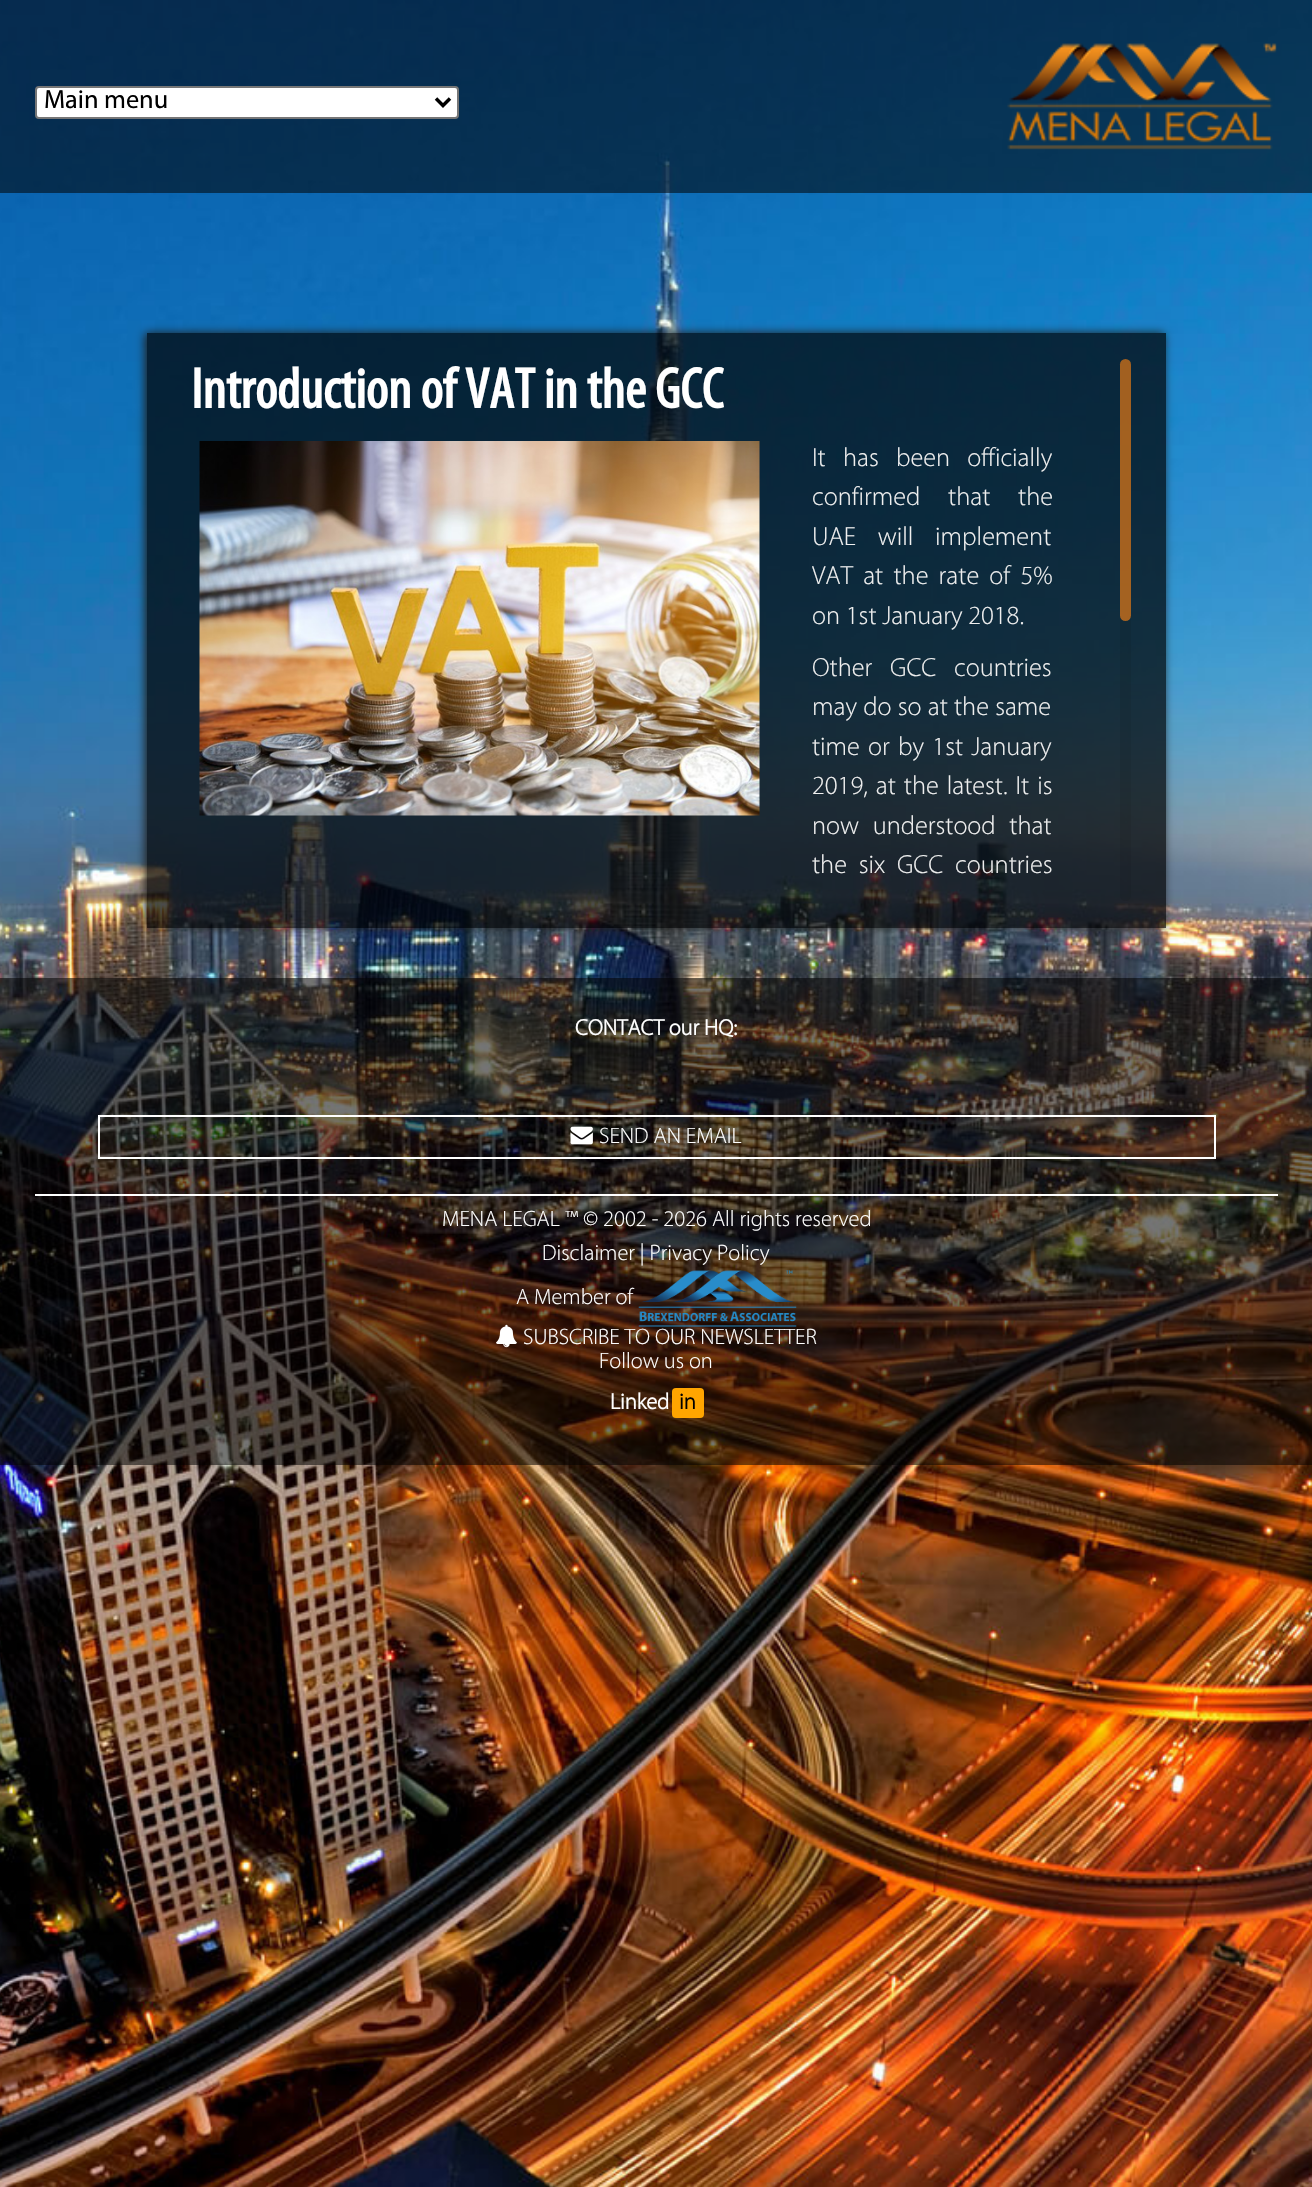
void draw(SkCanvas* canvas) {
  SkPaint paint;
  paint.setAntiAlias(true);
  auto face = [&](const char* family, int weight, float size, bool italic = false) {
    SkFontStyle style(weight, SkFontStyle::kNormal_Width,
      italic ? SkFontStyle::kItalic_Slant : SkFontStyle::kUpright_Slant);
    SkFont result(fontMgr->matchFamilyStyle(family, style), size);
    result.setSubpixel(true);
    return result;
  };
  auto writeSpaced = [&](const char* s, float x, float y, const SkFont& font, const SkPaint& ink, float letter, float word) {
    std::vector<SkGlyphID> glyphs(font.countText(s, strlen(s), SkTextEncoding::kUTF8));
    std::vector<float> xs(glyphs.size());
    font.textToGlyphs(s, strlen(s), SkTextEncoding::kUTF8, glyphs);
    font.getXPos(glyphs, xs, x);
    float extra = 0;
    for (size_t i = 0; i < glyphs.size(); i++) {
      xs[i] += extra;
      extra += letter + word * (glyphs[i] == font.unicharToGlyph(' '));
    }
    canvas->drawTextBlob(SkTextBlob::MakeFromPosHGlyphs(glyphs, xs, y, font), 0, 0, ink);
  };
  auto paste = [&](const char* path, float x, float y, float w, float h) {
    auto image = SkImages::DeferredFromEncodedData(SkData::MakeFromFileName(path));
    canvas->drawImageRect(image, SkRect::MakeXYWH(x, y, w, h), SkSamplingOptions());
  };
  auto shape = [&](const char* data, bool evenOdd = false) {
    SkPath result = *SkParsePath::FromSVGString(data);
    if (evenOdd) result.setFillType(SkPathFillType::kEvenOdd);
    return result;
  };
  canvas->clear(0xffffffff);
  paste("img/1.png", 0, 0, 1312, 2187);
  paint.setColor(0x8a000000);
  canvas->drawRect(SkRect::MakeXYWH(0, 0, 1312, 193), paint);
  paint.setColor(0xffffffff);
  canvas->drawRoundRect(SkRect::MakeXYWH(36, 87, 422, 31), 3, 3, paint);
  paint.setStroke(true);
  paint.setStrokeWidth(2);
  paint.setColor(0xff767676);
  canvas->drawRoundRect(SkRect::MakeXYWH(36, 87, 422, 31), 3, 3, paint);
  paint.setStrokeWidth(3.5f);
  paint.setColor(0xff000000);
  canvas->drawPath(shape("M436 98.5L443 105.5L450 98.5"), paint);
  paste("img/2.png", 1007, 43, 270, 107);
  canvas->save();
  canvas->clipPath(shape("M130 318H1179V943H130ZM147 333H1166V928H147Z", true), true);
  paint.setStroke(false);
  paint.setColor(0xff1f1f1d);
  paint.setMaskFilter(SkMaskFilter::MakeBlur(kNormal_SkBlurStyle, 4.5f));
  canvas->drawRect(SkRect::MakeXYWH(145, 333, 1019, 595), paint);
  paint.setMaskFilter(nullptr);
  canvas->restore();
  paint.setColor(0xb3000000);
  canvas->drawRect(SkRect::MakeXYWH(147, 333, 1019, 595), paint);
  paste("img/3.png", 199, 441, 561, 375);
  paint.setColor(0x14000000);
  canvas->drawRoundRect(SkRect::MakeXYWH(1120, 359, 11, 542), 5.5f, 5.5f, paint);
  paint.setColor(0xadeb7c14);
  canvas->drawRoundRect(SkRect::MakeXYWH(1120, 359, 11, 262), 5.5f, 5.5f, paint);
  paint.setColor(0x8a000000);
  canvas->drawRect(SkRect::MakeXYWH(0, 978, 1312, 487), paint);
  paint.setStroke(true);
  paint.setStrokeWidth(2);
  paint.setColor(0xffffffff);
  canvas->drawRect(SkRect::MakeXYWH(99, 1116, 1116, 42), paint);
  paste("img/4.png", 570, 1126, 23, 19);
  paint.setStroke(false);
  canvas->drawRect(SkRect::MakeXYWH(35, 1194, 1243, 2), paint);
  paste("img/5.png", 638, 1270, 159, 57);
  paste("img/6.png", 496, 1324, 21, 24);
  paint.setColor(0xffffa500);
  canvas->drawRoundRect(SkRect::MakeXYWH(672, 1388, 32, 30), 4, 4, paint);
  auto f0 = face("Myriad", 400, 26.25f);
  paint.setColor(0xff000000);
  canvas->drawString("Main menu", 44, 108, f0, paint);
  auto f1 = face("Myriad", 700, 57.75f);
  paint.setColor(0xffffffff);
  canvas->drawString("Introduction of VAT in the GCC", 191, 408, f1, paint);
  auto f2 = face("Myriad", 300, 26.25f);
  paint.setColor(0xffefefef);
  writeSpaced("It has been officially", 812, 466, f2, paint, 0, 11.5f);
  writeSpaced("confirmed that the", 812, 505, f2, paint, 0, 22);
  writeSpaced("UAE will implement", 812, 545, f2, paint, 0, 16);
  writeSpaced("VAT at the rate of 5%", 812, 584, f2, paint, 0, 4.5f);
  canvas->drawString("on 1st January 2018.", 812, 624, f2, paint);
  writeSpaced("Other GCC countries", 812, 676, f2, paint, 0, 12);
  writeSpaced("may do so at the same", 812, 715, f2, paint, 0, 0.5f);
  writeSpaced("time or by 1st January", 812, 755, f2, paint, 0, 2.5f);
  writeSpaced("2019, at the latest. It is", 812, 794, f2, paint, 0, 2.25f);
  writeSpaced("now understood that", 812, 834, f2, paint, 0, 8);
  writeSpaced("the six GCC countries", 812, 873, f2, paint, 0, 6);
  auto f3 = face("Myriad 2", 700, 22.4f);
  paint.setColor(0xffffffff);
  canvas->drawString("CONTACT our HQ:", 575, 1035, f3, paint);
  auto f4 = face("Myriad", 300, 22.4f);
  {
    const struct { const char* s; float x, y; } items[] = {
      {"SEND AN EMAIL", 599, 1143},
      {"MENA LEGAL ™ © 2002 - 2026 All rights reserved", 442, 1226},
      {"Disclaimer | Privacy Policy", 542, 1260},
      {"A Member of", 516, 1304},
      {"SUBSCRIBE TO OUR NEWSLETTER", 523, 1344},
      {"Follow us on", 599, 1368},
    };
    for (auto [s, x, y] : items) {
      canvas->drawString(s, x, y, f4, paint);
    }
  }
  canvas->drawString("Linked", 610, 1409, f3, paint);
  paint.setColor(0xff000000);
  canvas->drawString("in", 679, 1409, f3, paint);
}
